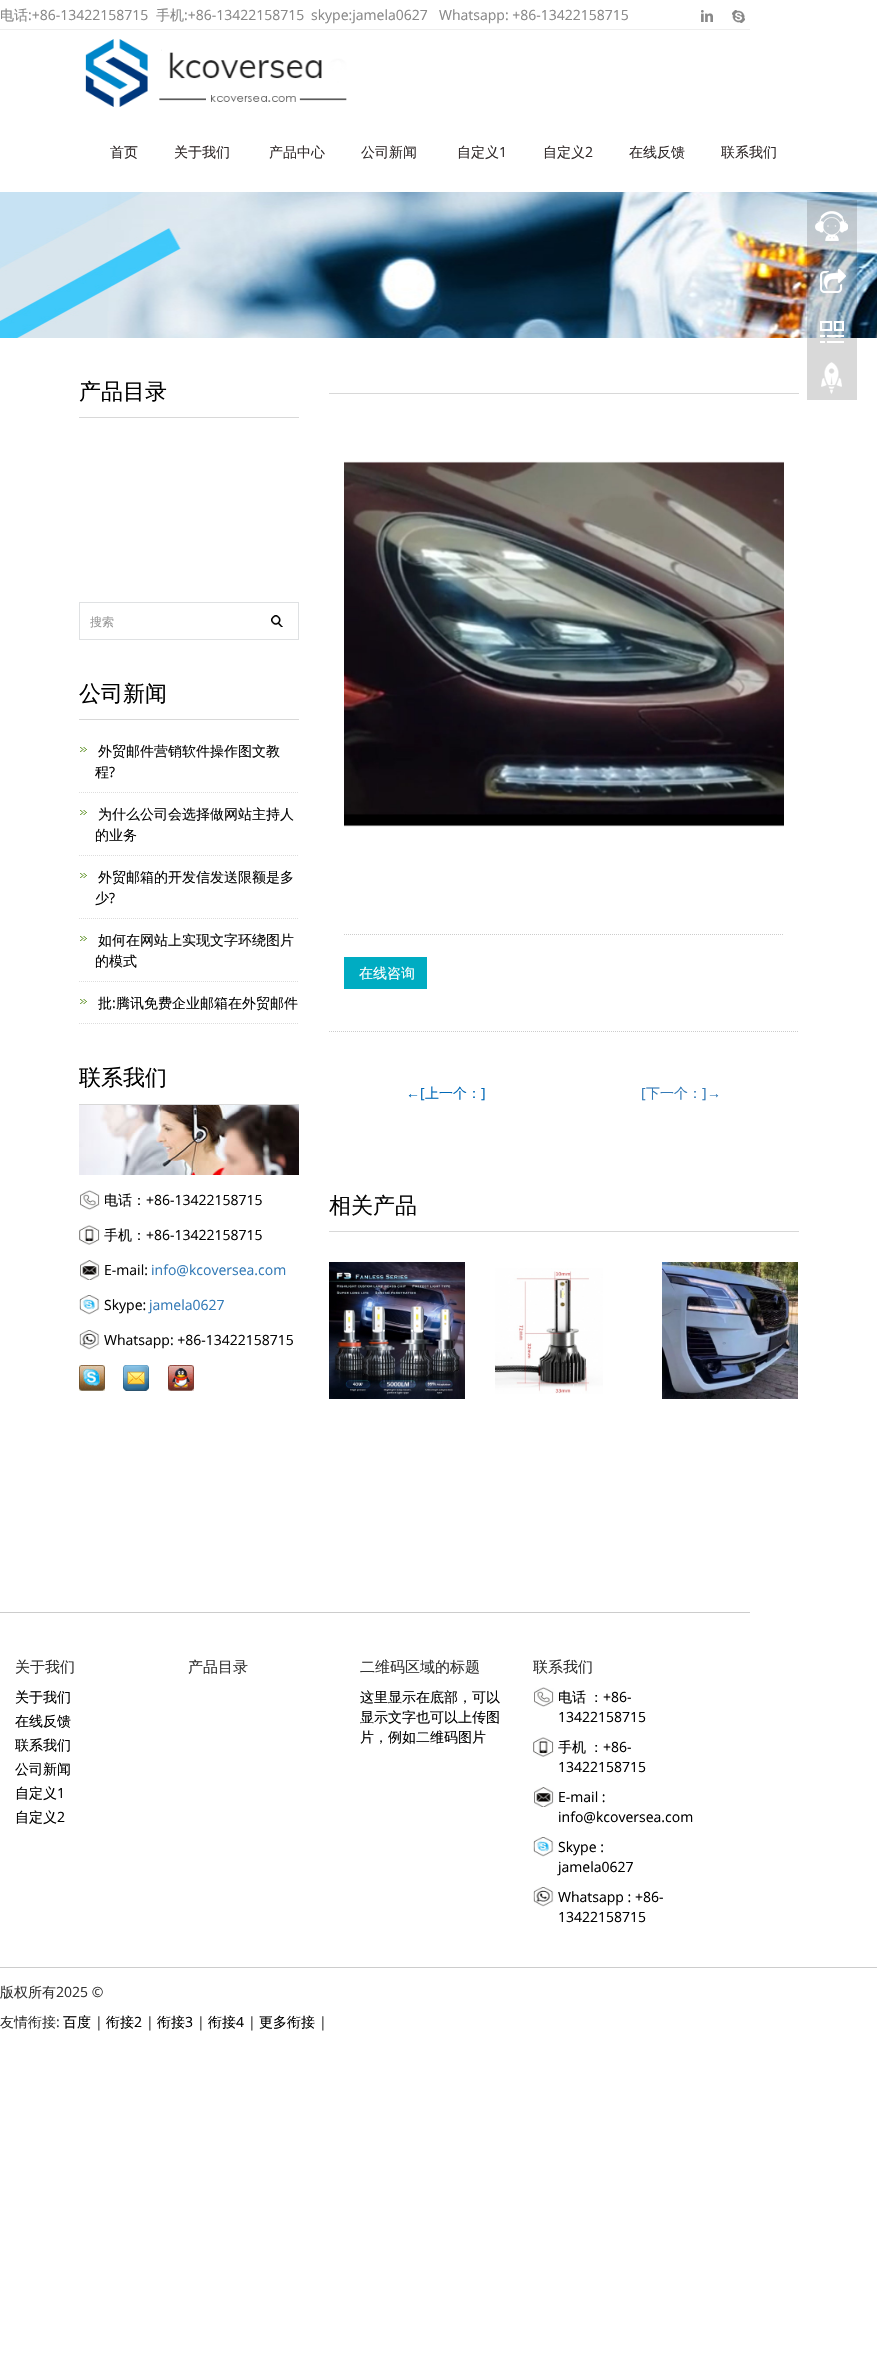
void draw(SkCanvas* canvas) {
  SkPaint paint;
  paint.setAntiAlias(true);
  auto face = [&](const char* family, int weight, float size, bool italic = false) {
    SkFontStyle style(weight, SkFontStyle::kNormal_Width,
      italic ? SkFontStyle::kItalic_Slant : SkFontStyle::kUpright_Slant);
    SkFont result(fontMgr->matchFamilyStyle(family, style), size);
    result.setSubpixel(true);
    return result;
  };
  auto writeSpaced = [&](const char* s, float x, float y, const SkFont& font, const SkPaint& ink, float letter, float word) {
    std::vector<SkGlyphID> glyphs(font.countText(s, strlen(s), SkTextEncoding::kUTF8));
    std::vector<float> xs(glyphs.size());
    font.textToGlyphs(s, strlen(s), SkTextEncoding::kUTF8, glyphs);
    font.getXPos(glyphs, xs, x);
    float extra = 0;
    for (size_t i = 0; i < glyphs.size(); i++) {
      xs[i] += extra;
      extra += letter + word * (glyphs[i] == font.unicharToGlyph(' '));
    }
    canvas->drawTextBlob(SkTextBlob::MakeFromPosHGlyphs(glyphs, xs, y, font), 0, 0, ink);
  };
  auto paste = [&](const char* path, float x, float y, float w, float h) {
    auto image = SkImages::DeferredFromEncodedData(SkData::MakeFromFileName(path));
    canvas->drawImageRect(image, SkRect::MakeXYWH(x, y, w, h), SkSamplingOptions());
  };
  auto shape = [&](const char* data, bool evenOdd = false) {
    SkPath result = *SkParsePath::FromSVGString(data);
    if (evenOdd) result.setFillType(SkPathFillType::kEvenOdd);
    return result;
  };
  canvas->clear(0xffffffff);
  paint.setColor(0xffeeeeee);
  canvas->drawRect(SkRect::MakeXYWH(0, 29, 750, 1), paint);
  paste("img/1.png", 701, 10, 12, 12);
  paste("img/2.png", 732, 10, 13, 13);
  paste("img/3.png", 85, 39, 262, 68);
  paste("img/4.png", 0, 192, 877, 146);
  paste("img/5.png", 807, 200, 50, 200);
  paint.setColor(0xffd8d8d8);
  canvas->drawRect(SkRect::MakeXYWH(79, 417, 220, 1), paint);
  paint.setStroke(true);
  paint.setStrokeWidth(1);
  paint.setColor(0xffdfe1e3);
  canvas->drawRect(SkRect::MakeXYWH(79.5f, 602.5f, 219, 37), paint);
  paste("img/6.png", 271, 615, 12, 12);
  paint.setStroke(false);
  paint.setColor(0xffd8d8d8);
  canvas->drawRect(SkRect::MakeXYWH(79, 719, 220, 1), paint);
  paste("img/7.png", 80, 747, 7, 5);
  paint.setStroke(true);
  paint.setColor(0xffdddddd);
  paint.setPathEffect(SkDashPathEffect::Make({{1, 1}}, 0));
  canvas->drawPath(shape("M79 792.5H299"), paint);
  paint.setPathEffect(nullptr);
  paste("img/7.png", 80, 810, 7, 5);
  paint.setPathEffect(SkDashPathEffect::Make({{1, 1}}, 0));
  canvas->drawPath(shape("M79 855.5H299"), paint);
  paint.setPathEffect(nullptr);
  paste("img/7.png", 80, 873, 7, 5);
  paint.setPathEffect(SkDashPathEffect::Make({{1, 1}}, 0));
  canvas->drawPath(shape("M79 918.5H299"), paint);
  paint.setPathEffect(nullptr);
  paste("img/7.png", 80, 936, 7, 5);
  paint.setPathEffect(SkDashPathEffect::Make({{1, 1}}, 0));
  canvas->drawPath(shape("M79 981.5H299"), paint);
  paint.setPathEffect(nullptr);
  paste("img/7.png", 80, 999, 7, 5);
  paint.setPathEffect(SkDashPathEffect::Make({{1, 1}}, 0));
  canvas->drawPath(shape("M79 1023.5H299"), paint);
  paint.setPathEffect(nullptr);
  paint.setStroke(false);
  paint.setColor(0xffd8d8d8);
  canvas->drawRect(SkRect::MakeXYWH(79, 1104, 220, 1), paint);
  paste("img/8.png", 79, 1105, 220, 70);
  paste("img/9.png", 80, 1190, 20, 20);
  paste("img/10.png", 79, 1225, 21, 20);
  paste("img/11.png", 80, 1260, 20, 20);
  paste("img/12.png", 79, 1295, 21, 20);
  paste("img/13.png", 79, 1330, 21, 20);
  paste("img/14.png", 79, 1365, 26, 26);
  paste("img/15.png", 123, 1365, 26, 26);
  paste("img/16.png", 168, 1365, 26, 26);
  canvas->drawRect(SkRect::MakeXYWH(329, 393, 470, 1), paint);
  paste("img/17.png", 344, 461, 440, 366);
  paint.setStroke(true);
  paint.setColor(0xffcccccc);
  paint.setPathEffect(SkDashPathEffect::Make({{1, 1}}, 0));
  canvas->drawPath(shape("M344 934.5H784"), paint);
  paint.setPathEffect(nullptr);
  paint.setStroke(false);
  paint.setColor(0xff00acc2);
  canvas->drawRect(SkRect::MakeXYWH(344, 957, 83, 32), paint);
  paint.setStroke(true);
  paint.setColor(0xffcccccc);
  paint.setPathEffect(SkDashPathEffect::Make({{1, 1}}, 0));
  canvas->drawPath(shape("M329 1031.5H799"), paint);
  paint.setPathEffect(nullptr);
  paint.setStroke(false);
  paint.setColor(0xffd8d8d8);
  canvas->drawRect(SkRect::MakeXYWH(329, 1231, 470, 1), paint);
  paste("img/18.png", 329, 1262, 136, 137);
  paste("img/19.png", 495, 1268, 108, 126);
  paste("img/20.png", 662, 1262, 136, 137);
  paint.setColor(0xffcccccc);
  canvas->drawRect(SkRect::MakeXYWH(0, 1612, 750, 1), paint);
  paste("img/9.png", 534, 1687, 20, 20);
  paste("img/10.png", 533, 1737, 21, 20);
  paste("img/11.png", 534, 1787, 20, 20);
  paste("img/12.png", 533, 1837, 21, 20);
  paste("img/13.png", 533, 1887, 21, 20);
  canvas->drawRect(SkRect::MakeXYWH(0, 1967, 877, 1), paint);
  auto f0 = face("WenQuanYi Zen Hei", 500, 14);
  paint.setColor(0xff888888);
  canvas->drawString("电话", 0, 20, f0, paint);
  auto f1 = face("Open Sans", 400, 14);
  canvas->drawString(":+86-13422158715", 28, 20, f1, paint);
  canvas->drawString("手机", 156, 20, f0, paint);
  {
    const struct { const char* s; float x, y; } items[] = {
      {":+86-13422158715", 184, 20},
      {"skype:jamela0627", 311, 20},
      {"Whatsapp: +86-13422158715", 439, 20},
    };
    for (auto [s, x, y] : items) {
      canvas->drawString(s, x, y, f1, paint);
    }
  }
  paint.setColor(0xff312b2b);
  {
    const struct { const char* s; float x, y; } items[] = {
      {"首页", 110, 157},
      {"关于我们", 174, 157},
      {"产品中心", 269, 157},
      {"公司新闻", 361, 157},
      {"自定义", 457, 157},
    };
    for (auto [s, x, y] : items) {
      canvas->drawString(s, x, y, f0, paint);
    }
  }
  canvas->drawString("1", 499, 157, f1, paint);
  canvas->drawString("自定义", 543, 157, f0, paint);
  canvas->drawString("2", 585, 157, f1, paint);
  canvas->drawString("在线反馈", 629, 157, f0, paint);
  canvas->drawString("联系我们", 721, 157, f0, paint);
  auto f2 = face("WenQuanYi Zen Hei", 500, 22);
  paint.setColor(0xff000000);
  canvas->drawString("产品目录", 79, 399, f2, paint);
  canvas->save();
  canvas->clipRect(SkRect::MakeXYWH(90, 613, 171, 18));
  auto f3 = face("WenQuanYi Zen Hei", 500, 12);
  paint.setColor(0xff999999);
  canvas->drawString("搜索", 90, 626, f3, paint);
  canvas->restore();
  paint.setColor(0xff000000);
  canvas->drawString("公司新闻", 79, 701, f2, paint);
  paint.setColor(0xff060606);
  canvas->drawString("外贸邮件营销软件操作图文教", 98, 756, f0, paint);
  canvas->drawString("程", 95, 777, f0, paint);
  canvas->drawString("?", 109, 777, f1, paint);
  {
    const struct { const char* s; float x, y; } items[] = {
      {"为什么公司会选择做网站主持人", 98, 819},
      {"的业务", 95, 840},
      {"外贸邮箱的开发信发送限额是多", 98, 882},
      {"少", 95, 903},
    };
    for (auto [s, x, y] : items) {
      canvas->drawString(s, x, y, f0, paint);
    }
  }
  canvas->drawString("?", 109, 903, f1, paint);
  {
    const struct { const char* s; float x, y; } items[] = {
      {"如何在网站上实现文字环绕图片", 98, 945},
      {"的模式", 95, 966},
      {"批", 98, 1008},
    };
    for (auto [s, x, y] : items) {
      canvas->drawString(s, x, y, f0, paint);
    }
  }
  canvas->drawString(":", 112, 1008, f1, paint);
  canvas->drawString("腾讯免费企业邮箱在外贸邮件", 116, 1008, f0, paint);
  paint.setColor(0xff000000);
  canvas->drawString("联系我们", 79, 1085, f2, paint);
  paint.setColor(0xff060606);
  canvas->drawString("电话：", 104, 1205, f0, paint);
  canvas->drawString("+86-13422158715", 146, 1205, f1, paint);
  canvas->drawString("手机：", 104, 1240, f0, paint);
  canvas->drawString("+86-13422158715", 146, 1240, f1, paint);
  canvas->drawString("E-mail:", 104, 1275, f1, paint);
  paint.setColor(0xff337ab7);
  canvas->drawString("info@kcoversea.com", 151, 1275, f1, paint);
  paint.setColor(0xff060606);
  canvas->drawString("Skype:", 104, 1310, f1, paint);
  paint.setColor(0xff337ab7);
  canvas->drawString("jamela0627", 149, 1310, f1, paint);
  paint.setColor(0xff060606);
  canvas->drawString("Whatsapp: +86-13422158715", 104, 1345, f1, paint);
  paint.setColor(0xffffffff);
  canvas->drawString("在线咨询", 359, 978, f0, paint);
  auto f4 = face("Liberation Sans", 400, 14);
  paint.setColor(0xff0068b7);
  canvas->drawString("←", 406, 1098, f4, paint);
  canvas->drawString("[", 420, 1098, f1, paint);
  canvas->drawString("上一个：", 425, 1098, f0, paint);
  canvas->drawString("]", 481, 1098, f1, paint);
  paint.setColor(0xff337ab7);
  canvas->drawString("[", 641, 1098, f1, paint);
  canvas->drawString("下一个：", 646, 1098, f0, paint);
  canvas->drawString("]", 702, 1098, f1, paint);
  canvas->drawString("→", 707, 1098, f4, paint);
  paint.setColor(0xff060606);
  canvas->drawString("相关产品", 329, 1213, f2, paint);
  auto f5 = face("WenQuanYi Zen Hei", 500, 15);
  paint.setColor(0xff333333);
  canvas->drawString("关于我们", 15, 1672, f5, paint);
  paint.setColor(0xff000000);
  {
    const struct { const char* s; float x, y; } items[] = {
      {"关于我们", 15, 1702},
      {"在线反馈", 15, 1726},
      {"联系我们", 15, 1750},
      {"公司新闻", 15, 1774},
      {"自定义", 15, 1798},
    };
    for (auto [s, x, y] : items) {
      canvas->drawString(s, x, y, f0, paint);
    }
  }
  canvas->drawString("1", 57, 1798, f1, paint);
  canvas->drawString("自定义", 15, 1822, f0, paint);
  canvas->drawString("2", 57, 1822, f1, paint);
  paint.setColor(0xff333333);
  canvas->drawString("产品目录", 188, 1672, f5, paint);
  canvas->drawString("二维码区域的标题", 360, 1672, f5, paint);
  paint.setColor(0xff000000);
  {
    const struct { const char* s; float x, y; } items[] = {
      {"这里显示在底部，可以", 360, 1702},
      {"显示文字也可以上传图", 360, 1722},
      {"片，例如二维码图片", 360, 1742},
    };
    for (auto [s, x, y] : items) {
      canvas->drawString(s, x, y, f0, paint);
    }
  }
  paint.setColor(0xff333333);
  canvas->drawString("联系我们", 533, 1672, f5, paint);
  paint.setColor(0xff000000);
  writeSpaced("电话 ：", 558, 1702, f0, paint, 0, -1);
  canvas->drawString("+86-", 603, 1702, f1, paint);
  canvas->drawString("13422158715", 558, 1722, f1, paint);
  writeSpaced("手机 ：", 558, 1752, f0, paint, 0, -1);
  {
    const struct { const char* s; float x, y; } items[] = {
      {"+86-", 603, 1752},
      {"13422158715", 558, 1772},
      {"E-mail :", 558, 1802},
      {"info@kcoversea.com", 558, 1822},
      {"Skype :", 558, 1852},
      {"jamela0627", 558, 1872},
      {"Whatsapp : +86-", 558, 1902},
      {"13422158715", 558, 1922},
    };
    for (auto [s, x, y] : items) {
      canvas->drawString(s, x, y, f1, paint);
    }
  }
  paint.setColor(0xff333333);
  canvas->drawString("版权所有", 0, 1997, f0, paint);
  canvas->drawString("2025 ©", 56, 1997, f1, paint);
  canvas->drawString("友情衔接", 0, 2027, f0, paint);
  canvas->drawString(":", 56, 2027, f1, paint);
  paint.setColor(0xff000000);
  canvas->drawString("百度", 63, 2027, f0, paint);
  paint.setColor(0xff333333);
  canvas->drawString("|", 95, 2027, f1, paint);
  paint.setColor(0xff000000);
  canvas->drawString("衔接", 106, 2027, f0, paint);
  canvas->drawString("2", 134, 2027, f1, paint);
  paint.setColor(0xff333333);
  canvas->drawString("|", 146, 2027, f1, paint);
  paint.setColor(0xff000000);
  canvas->drawString("衔接", 157, 2027, f0, paint);
  canvas->drawString("3", 185, 2027, f1, paint);
  paint.setColor(0xff333333);
  canvas->drawString("|", 197, 2027, f1, paint);
  paint.setColor(0xff000000);
  canvas->drawString("衔接", 208, 2027, f0, paint);
  canvas->drawString("4", 236, 2027, f1, paint);
  paint.setColor(0xff333333);
  canvas->drawString("|", 248, 2027, f1, paint);
  paint.setColor(0xff000000);
  canvas->drawString("更多衔接", 259, 2027, f0, paint);
  paint.setColor(0xff333333);
  canvas->drawString("|", 319, 2027, f1, paint);
}
